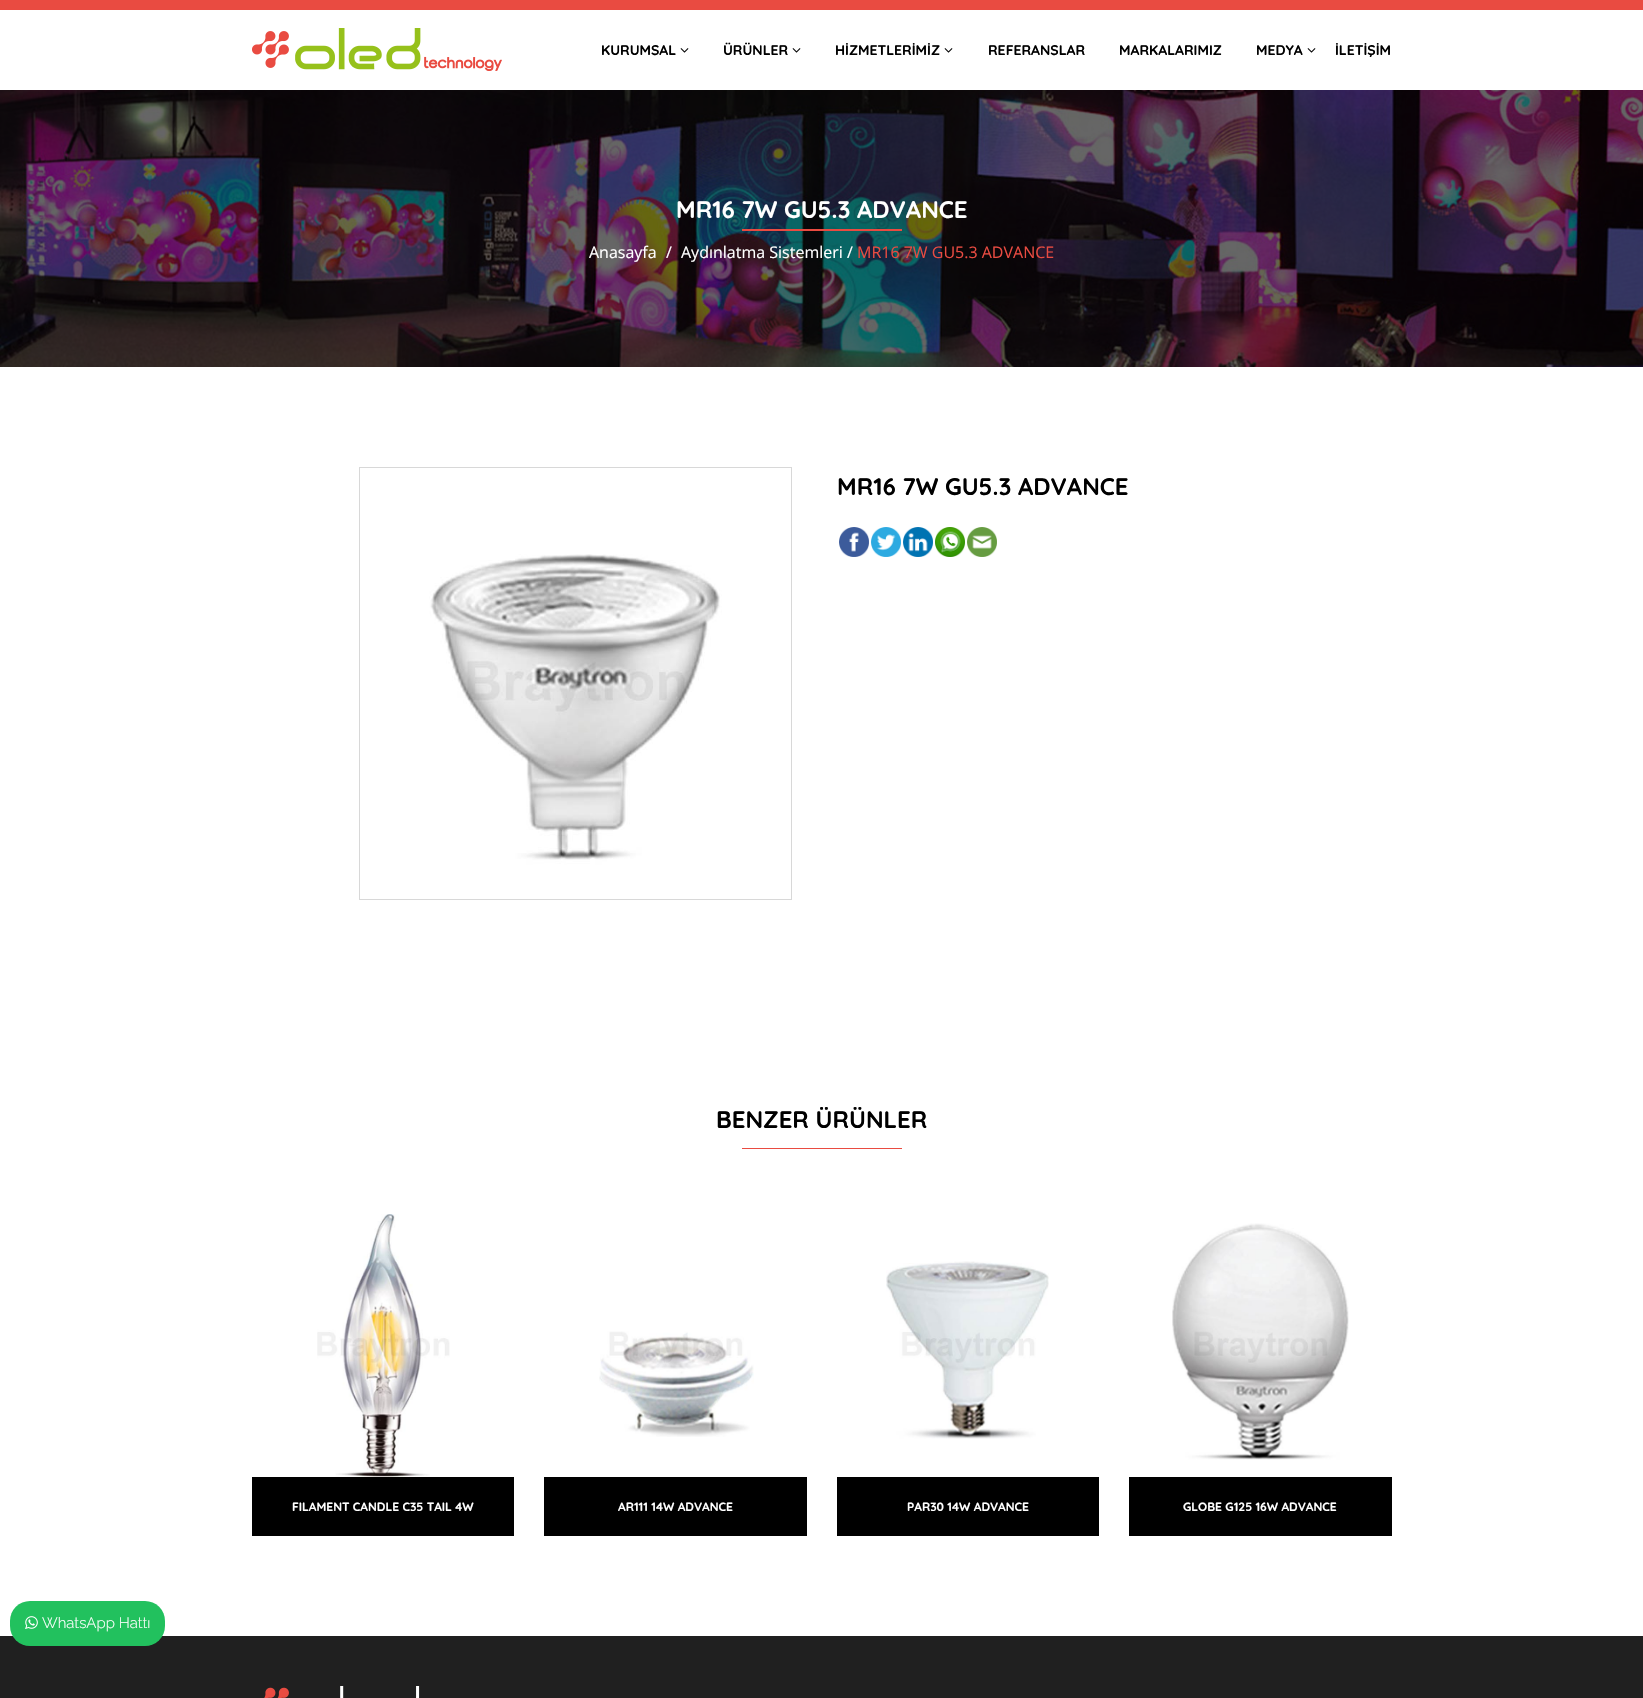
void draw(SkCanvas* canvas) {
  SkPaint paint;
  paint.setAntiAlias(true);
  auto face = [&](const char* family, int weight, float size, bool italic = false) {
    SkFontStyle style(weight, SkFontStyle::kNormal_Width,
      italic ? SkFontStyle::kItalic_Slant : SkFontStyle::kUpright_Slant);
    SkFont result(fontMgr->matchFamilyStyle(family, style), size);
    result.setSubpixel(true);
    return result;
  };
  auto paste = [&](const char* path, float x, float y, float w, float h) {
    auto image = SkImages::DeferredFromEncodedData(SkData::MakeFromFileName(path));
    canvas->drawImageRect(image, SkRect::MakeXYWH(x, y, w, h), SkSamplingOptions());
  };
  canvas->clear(0xffffffff);
  paint.setColor(0xffe94b41);
  canvas->drawRect(SkRect::MakeXYWH(0, 0, 1643, 10), paint);
  paste("img/1.png", 252, 28, 250, 43);
  paste("img/2.png", 680, 48, 9, 5);
  paste("img/2.png", 792, 48, 9, 5);
  paste("img/2.png", 944, 48, 9, 5);
  paste("img/2.png", 1307, 48, 9, 5);
  paste("img/3.png", 0, 90, 1643, 277);
  canvas->drawRect(SkRect::MakeXYWH(742, 229, 160, 2), paint);
  paint.setStroke(true);
  paint.setStrokeWidth(1);
  paint.setColor(0xffd8d8d8);
  canvas->drawRect(SkRect::MakeXYWH(359.5f, 467.5f, 432, 432), paint);
  paste("img/4.png", 360, 468, 431, 431);
  paste("img/5.png", 839, 527, 30, 30);
  paste("img/6.png", 871, 527, 30, 30);
  paste("img/7.png", 903, 527, 30, 30);
  paste("img/8.png", 935, 527, 30, 30);
  paste("img/9.png", 967, 527, 30, 30);
  paint.setStroke(false);
  paint.setColor(0xffe94b41);
  canvas->drawRect(SkRect::MakeXYWH(742, 1148, 160, 1), paint);
  paste("img/10.png", 317, 1214, 133, 263);
  paint.setColor(0xff000000);
  canvas->drawRect(SkRect::MakeXYWH(252, 1477, 262, 59), paint);
  paste("img/11.png", 599, 1331, 155, 106);
  canvas->drawRect(SkRect::MakeXYWH(544, 1477, 263, 59), paint);
  paste("img/12.png", 886, 1261, 163, 178);
  canvas->drawRect(SkRect::MakeXYWH(837, 1477, 262, 59), paint);
  paste("img/13.png", 1172, 1223, 177, 237);
  canvas->drawRect(SkRect::MakeXYWH(1129, 1477, 263, 59), paint);
  paint.setColor(0xff202020);
  canvas->drawRect(SkRect::MakeXYWH(0, 1636, 1643, 62), paint);
  paint.setColor(0xff22c15e);
  canvas->drawRoundRect(SkRect::MakeXYWH(10, 1601, 155, 45), 20, 20, paint);
  paste("img/14.png", 25, 1616, 13, 13);
  paste("img/15.png", 264, 1686, 156, 12);
  auto f0 = face("Quicksand", 700, 14);
  paint.setColor(0xff000000);
  {
    const struct { const char* s; float x, y; } items[] = {
      {"KURUMSAL", 601, 55},
      {"ÜRÜNLER", 723, 55},
      {"HİZMETLERİMİZ", 835, 55},
      {"REFERANSLAR", 988, 55},
      {"MARKALARIMIZ", 1119, 55},
      {"MEDYA", 1256, 55},
      {"İLETİŞİM", 1335, 55},
    };
    for (auto [s, x, y] : items) {
      canvas->drawString(s, x, y, f0, paint);
    }
  }
  auto f1 = face("Quicksand", 700, 24);
  paint.setColor(0xffffffff);
  canvas->drawString("MR16 7W GU5.3 ADVANCE", 676, 218, f1, paint);
  auto f2 = face("Open Sans", 400, 16);
  {
    const struct { const char* s; float x, y; } items[] = {
      {"Anasayfa", 589, 258},
      {"/", 666, 258},
      {"Aydınlatma Sistemleri /", 681, 258},
    };
    for (auto [s, x, y] : items) {
      canvas->drawString(s, x, y, f2, paint);
    }
  }
  paint.setColor(0xffe94b41);
  canvas->drawString("MR16 7W GU5.3 ADVANCE", 857, 258, f2, paint);
  paint.setColor(0xff000000);
  canvas->drawString("MR16 7W GU5.3 ADVANCE", 837, 495, f1, paint);
  canvas->drawString("BENZER ÜRÜNLER", 716, 1128, f1, paint);
  auto f3 = face("Quicksand", 700, 12);
  paint.setColor(0xffffffff);
  {
    const struct { const char* s; float x, y; } items[] = {
      {"FILAMENT CANDLE C35 TAIL 4W", 292, 1511},
      {"AR111 14W ADVANCE", 618, 1511},
      {"PAR30 14W ADVANCE", 907, 1511},
      {"GLOBE G125 16W ADVANCE", 1183, 1511},
    };
    for (auto [s, x, y] : items) {
      canvas->drawString(s, x, y, f3, paint);
    }
  }
  auto f4 = face("Raleway", 300, 15);
  canvas->drawString("WhatsApp Hattı", 42, 1628, f4, paint);
}
